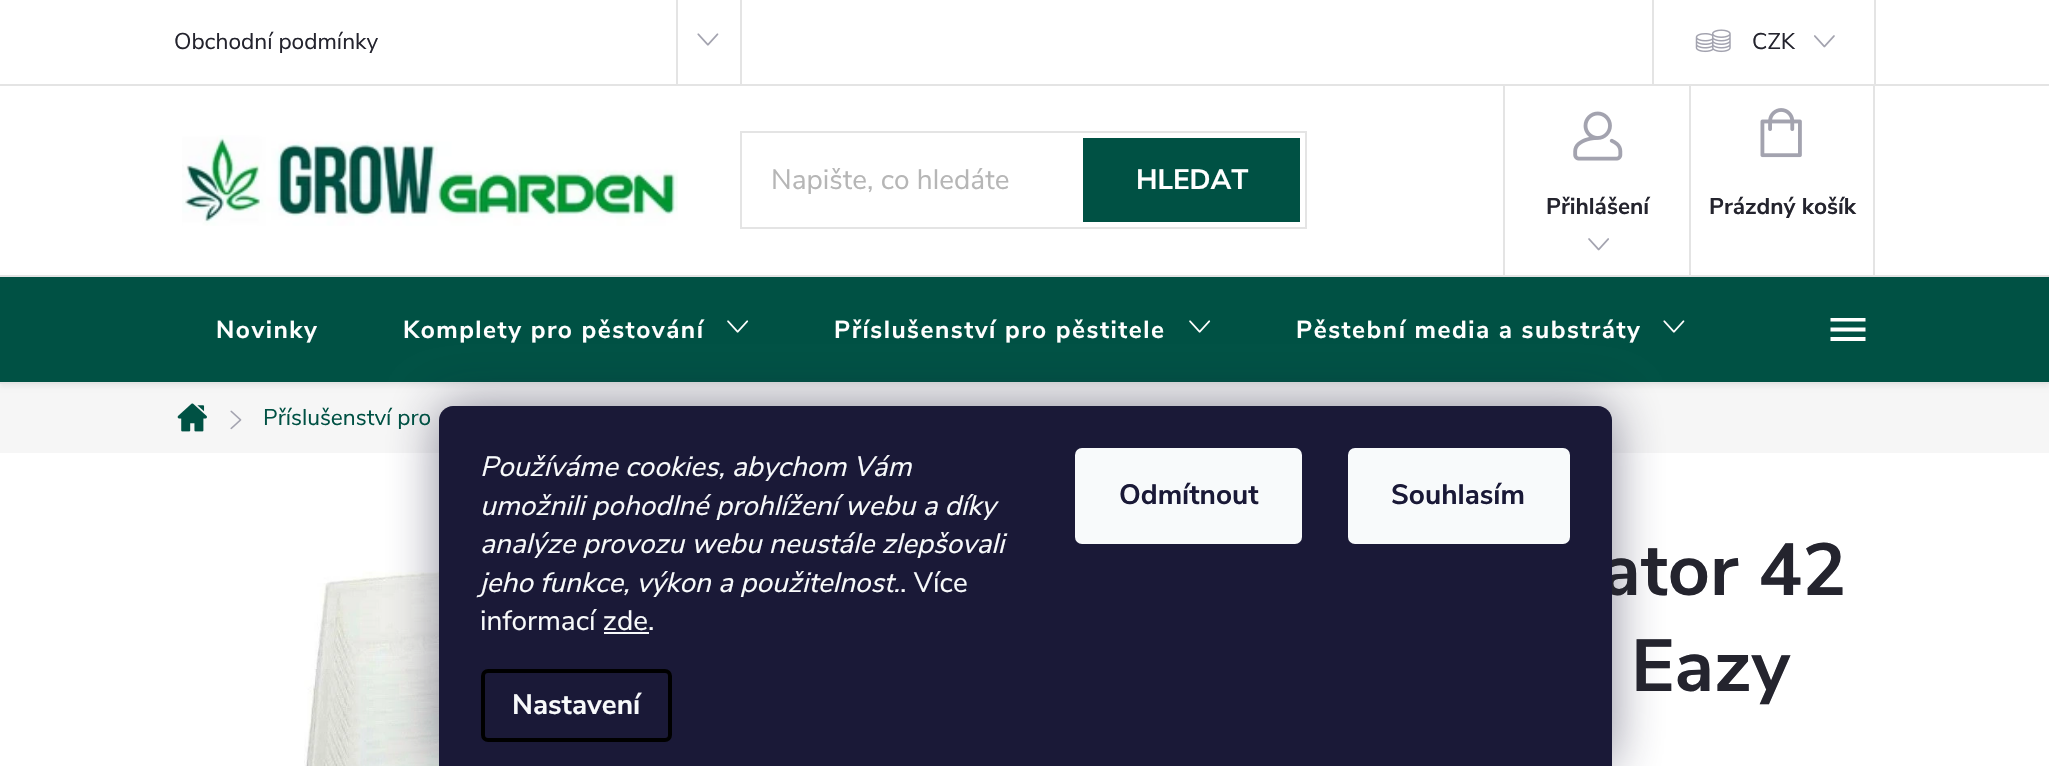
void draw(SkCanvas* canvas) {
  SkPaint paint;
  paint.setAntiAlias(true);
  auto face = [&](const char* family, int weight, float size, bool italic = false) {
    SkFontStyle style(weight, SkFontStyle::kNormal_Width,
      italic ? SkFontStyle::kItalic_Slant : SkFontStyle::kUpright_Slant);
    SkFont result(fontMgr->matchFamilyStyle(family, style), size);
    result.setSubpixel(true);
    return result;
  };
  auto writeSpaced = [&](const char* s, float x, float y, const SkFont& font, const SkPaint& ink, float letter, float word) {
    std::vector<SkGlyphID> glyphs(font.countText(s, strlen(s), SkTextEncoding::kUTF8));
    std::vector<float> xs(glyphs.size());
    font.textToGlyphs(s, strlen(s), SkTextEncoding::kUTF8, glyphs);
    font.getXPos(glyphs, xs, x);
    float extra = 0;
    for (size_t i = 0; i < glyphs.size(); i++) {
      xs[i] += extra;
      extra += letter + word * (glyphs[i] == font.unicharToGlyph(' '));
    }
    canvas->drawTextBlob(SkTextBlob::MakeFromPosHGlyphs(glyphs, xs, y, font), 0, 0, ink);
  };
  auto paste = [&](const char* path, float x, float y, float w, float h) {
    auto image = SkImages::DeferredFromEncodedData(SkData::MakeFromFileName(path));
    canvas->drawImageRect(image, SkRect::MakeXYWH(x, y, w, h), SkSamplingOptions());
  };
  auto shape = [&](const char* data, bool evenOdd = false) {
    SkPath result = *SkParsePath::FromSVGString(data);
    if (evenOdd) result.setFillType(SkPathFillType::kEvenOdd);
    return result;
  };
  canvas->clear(0xffffffff);
  {
    const struct { float x, y, w, h; SkColor color; } items[] = {
      {0, 84, 2049, 2, 0xffe4e4e4},
      {740, 0, 2, 84, 0xffe4e4e4},
      {676, 0, 2, 84, 0xffe4e4e4},
    };
    for (auto [x, y, w, h, color] : items) {
      paint.setColor(color);
      canvas->drawRect(SkRect::MakeXYWH(x, y, w, h), paint);
    }
  }
  paste("img/1.png", 697, 33, 22, 13);
  canvas->drawRect(SkRect::MakeXYWH(1874, 0, 2, 84), paint);
  canvas->drawRect(SkRect::MakeXYWH(1652, 0, 2, 84), paint);
  paste("img/2.png", 1695, 29, 36, 24);
  paste("img/3.png", 1814, 35, 21, 13);
  paste("img/4.png", 182, 135, 496, 91);
  paint.setStroke(true);
  paint.setStrokeWidth(2);
  canvas->drawRect(SkRect::MakeXYWH(741, 132, 565, 96), paint);
  paint.setStroke(false);
  paint.setColor(0xff005144);
  canvas->drawRect(SkRect::MakeXYWH(1083, 138, 217, 84), paint);
  paint.setColor(0xffe4e4e4);
  canvas->drawRect(SkRect::MakeXYWH(1503, 86, 2, 189), paint);
  paste("img/5.png", 1573, 111, 50, 50);
  paste("img/6.png", 1588, 238, 21, 13);
  canvas->drawRect(SkRect::MakeXYWH(1873, 86, 2, 189), paint);
  canvas->drawRect(SkRect::MakeXYWH(1689, 86, 2, 189), paint);
  paste("img/7.png", 1760, 108, 42, 50);
  paint.setColor(0xfff6f6f6);
  canvas->drawRect(SkRect::MakeXYWH(0, 384, 2049, 69), paint);
  paint.setColor(0x0d000000);
  paint.setMaskFilter(SkMaskFilter::MakeBlur(kNormal_SkBlurStyle, 2));
  canvas->drawRect(SkRect::MakeXYWH(0, 278, 2049, 109), paint);
  paint.setMaskFilter(nullptr);
  paint.setColor(0xff005144);
  canvas->drawRect(SkRect::MakeXYWH(0, 277, 2049, 105), paint);
  paste("img/8.png", 727, 320, 22, 13);
  paste("img/8.png", 1189, 320, 22, 13);
  paste("img/9.png", 1663, 320, 22, 13);
  paint.setColor(0xffffffff);
  canvas->drawPath(shape("M1830.5 341H1865.5V337H1830.5ZM1830.5 331.5H1865.5V327.5H1830.5ZM1830.5 318V321.5H1865.5V318Z"), paint);
  paint.setColor(0xffe4e4e4);
  canvas->drawRect(SkRect::MakeXYWH(0, 275, 2049, 2), paint);
  canvas->drawRect(SkRect::MakeXYWH(0, 382, 2049, 2), paint);
  paste("img/10.png", 177, 403, 30, 29);
  paste("img/11.png", 230, 410, 12, 20);
  paste("img/12.png", 304, 551, 135, 215);
  paint.setColor(0x801b1939);
  paint.setMaskFilter(SkMaskFilter::MakeBlur(kNormal_SkBlurStyle, 26));
  canvas->drawRoundRect(SkRect::MakeXYWH(439, 406, 1173, 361), 14, 14, paint);
  paint.setMaskFilter(nullptr);
  auto f0 = face("Nunito Sans", 400, 22.75f);
  paint.setColor(0xff24242e);
  canvas->drawString("Obchodní podmínky", 174, 49, f0, paint);
  canvas->drawString("CZK", 1752, 49, f0, paint);
  auto f1 = face("Nunito Sans", 400, 28);
  paint.setColor(0xffb6b6b6);
  canvas->drawString("Napište, co hledáte", 771, 189, f1, paint);
  auto f2 = face("Nunito Sans", 700, 28);
  paint.setColor(0xffffffff);
  canvas->drawString("HLEDAT", 1136, 189, f2, paint);
  auto f3 = face("Nunito Sans", 700, 22.75f);
  paint.setColor(0xff24242e);
  canvas->drawString("Přihlášení", 1546, 214, f3, paint);
  canvas->drawString("Prázdný košík", 1709, 214, f3, paint);
  auto f4 = face("Nunito Sans", 700, 24.5f);
  paint.setColor(0xffffffff);
  {
    const struct { const char* s; float x, y; } items[] = {
      {"Novinky", 216, 338},
      {"Komplety pro pěstování", 403, 338},
      {"Příslušenství pro pěstitele", 834, 338},
      {"Pěstební media a substráty", 1296, 338},
    };
    for (auto [s, x, y] : items) {
      writeSpaced(s, x, y, f4, paint, 1.5f, 0);
    }
  }
  paint.setColor(0xff005144);
  canvas->drawString("Příslušenství pro", 263, 425, f0, paint);
  auto f5 = face("Nunito Sans", 700, 73.5f);
  paint.setColor(0xff24242e);
  canvas->drawString("ator 42", 1601, 595, f5, paint);
  canvas->drawString("Eazy", 1631, 691, f5, paint);
  paint.setColor(0xff1a1937);
  canvas->drawPath(shape("M453 406H1598C1605.5 406 1612 412.5 1612 420V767H439V420C439 412.5 445.5 406 453 406Z"), paint);
  auto f6 = face("Nunito Sans", 400, 28, true);
  paint.setColor(0xfff8fafb);
  {
    const struct { const char* s; float x, y; } items[] = {
      {"Používáme cookies, abychom Vám", 480, 476},
      {"umožnili pohodlné prohlížení webu a díky", 480, 515},
      {"analýze provozu webu neustále zlepšovali", 480, 553},
      {"jeho funkce, výkon a použitelnost.", 480, 592},
    };
    for (auto [s, x, y] : items) {
      canvas->drawString(s, x, y, f6, paint);
    }
  }
  canvas->drawString(". Více", 900, 592, f1, paint);
  canvas->drawString("informací zde.", 480, 630, f1, paint);
  canvas->drawRect(SkRect::MakeXYWH(604, 632, 45, 2), paint);
  paint.setStroke(true);
  paint.setStrokeWidth(4);
  paint.setColor(0xff000000);
  canvas->drawRoundRect(SkRect::MakeXYWH(483, 671, 187, 69), 5, 5, paint);
  paint.setStroke(false);
  paint.setColor(0xfff8fafb);
  canvas->drawString("Nastavení", 512, 714, f2, paint);
  canvas->drawRoundRect(SkRect::MakeXYWH(1075, 448, 227, 96), 7, 7, paint);
  paint.setColor(0xff1a1937);
  canvas->drawString("Odmítnout", 1119, 504, f2, paint);
  paint.setColor(0xfff8fafb);
  canvas->drawRoundRect(SkRect::MakeXYWH(1348, 448, 222, 96), 7, 7, paint);
  paint.setColor(0xff1a1937);
  canvas->drawString("Souhlasím", 1391, 504, f2, paint);
}
